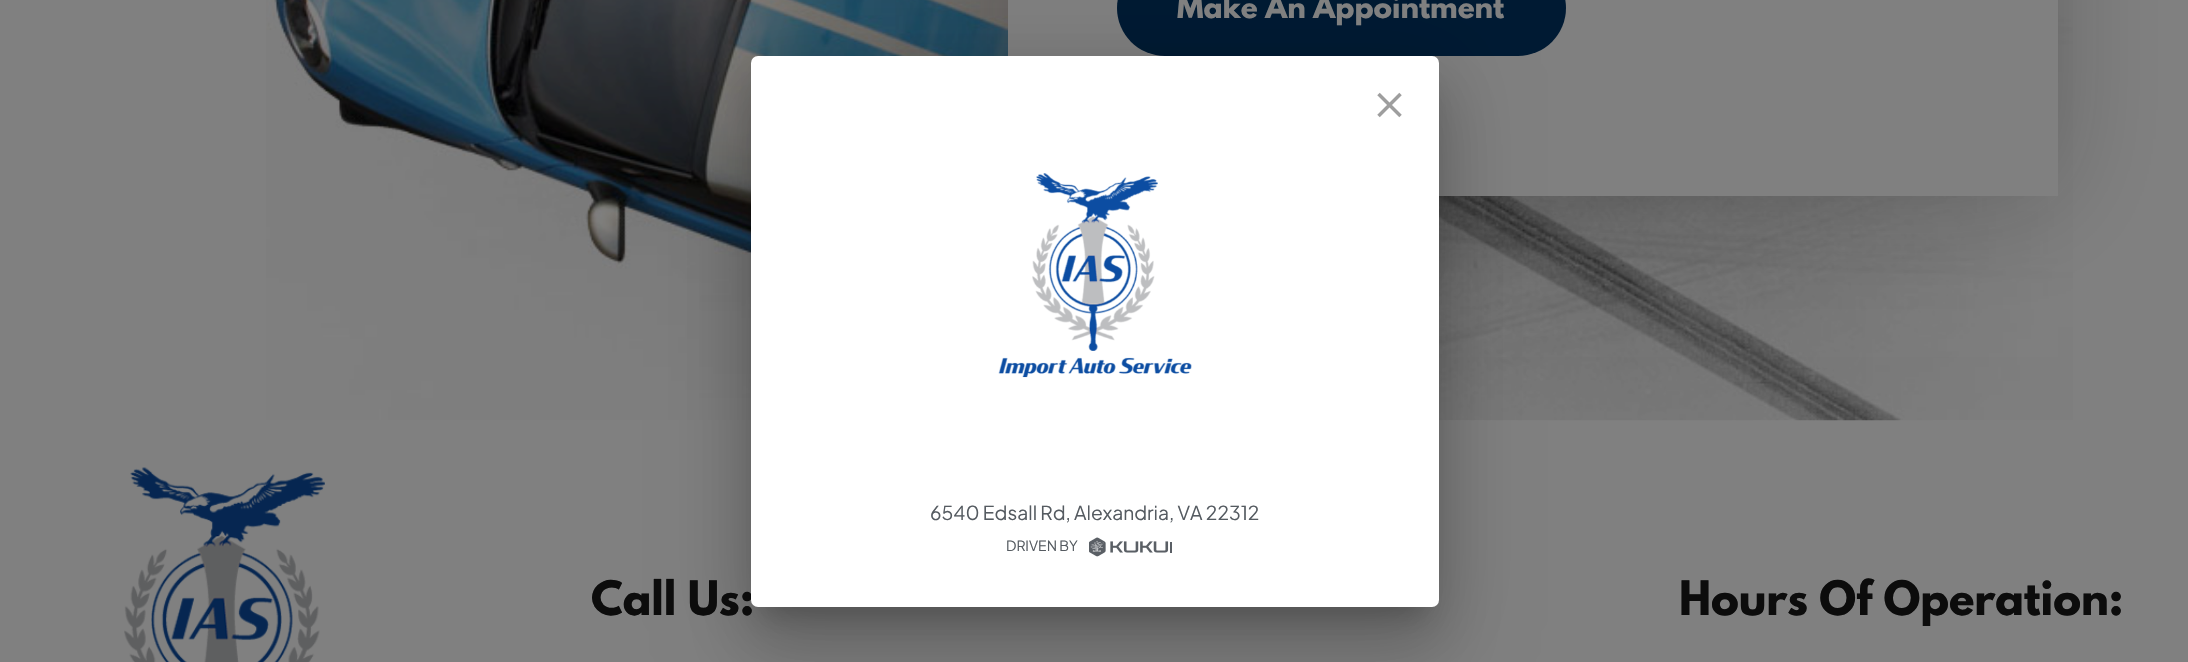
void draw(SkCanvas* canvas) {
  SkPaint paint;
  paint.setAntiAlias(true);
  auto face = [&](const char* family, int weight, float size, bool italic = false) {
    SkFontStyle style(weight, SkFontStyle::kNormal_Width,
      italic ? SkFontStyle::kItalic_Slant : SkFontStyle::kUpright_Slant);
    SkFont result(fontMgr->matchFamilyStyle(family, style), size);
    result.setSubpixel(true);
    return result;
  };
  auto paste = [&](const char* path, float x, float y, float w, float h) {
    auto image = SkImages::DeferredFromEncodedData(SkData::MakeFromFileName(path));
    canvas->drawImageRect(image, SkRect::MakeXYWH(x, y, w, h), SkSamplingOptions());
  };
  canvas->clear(0xff808080);
  paste("img/1.png", 266, 0, 1807, 421);
  paint.setColor(0x3b121212);
  paint.setMaskFilter(SkMaskFilter::MakeBlur(kNormal_SkBlurStyle, 54));
  canvas->drawRect(SkRect::MakeXYWH(1008, -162, 1050, 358), paint);
  paint.setMaskFilter(nullptr);
  paint.setColor(0xff808080);
  canvas->drawRect(SkRect::MakeXYWH(1008, 0, 1050, 196), paint);
  paint.setColor(0xff001a33);
  canvas->drawRoundRect(SkRect::MakeXYWH(1117, -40, 449, 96), 48, 48, paint);
  paste("img/2.png", 124, 467, 201, 195);
  paint.setColor(0x1f000000);
  paint.setMaskFilter(SkMaskFilter::MakeBlur(kNormal_SkBlurStyle, 40));
  canvas->drawRoundRect(SkRect::MakeXYWH(737, 58, 716, 579), 21, 21, paint);
  paint.setMaskFilter(nullptr);
  paint.setColor(0x24000000);
  paint.setMaskFilter(SkMaskFilter::MakeBlur(kNormal_SkBlurStyle, 33));
  canvas->drawRoundRect(SkRect::MakeXYWH(746, 93, 698, 562), 12, 12, paint);
  paint.setMaskFilter(nullptr);
  paint.setColor(0x33000000);
  paint.setMaskFilter(SkMaskFilter::MakeBlur(kNormal_SkBlurStyle, 13));
  canvas->drawRect(SkRect::MakeXYWH(763, 88, 663, 526), paint);
  paint.setMaskFilter(nullptr);
  auto f0 = face("League Spartan", 700, 28);
  paint.setColor(0xff808080);
  canvas->drawString("Make An Appointment", 1177, 18, f0, paint);
  auto f1 = face("League Spartan", 700, 42);
  paint.setColor(0xff0c0c0c);
  canvas->drawString("Call Us:", 591, 615, f1, paint);
  canvas->drawString("Hours Of Operation:", 1679, 615, f1, paint);
  paint.setColor(0xffffffff);
  canvas->drawRoundRect(SkRect::MakeXYWH(751, 56, 688, 551), 7, 7, paint);
  paste("img/3.png", 1377, 92, 25, 26);
  paste("img/4.png", 998, 173, 194, 205);
  auto f2 = face("Plus Jakarta Sans", 400, 19.25f);
  paint.setColor(0xff555b61);
  canvas->drawString("6540 Edsall Rd, Alexandria, VA 22312", 930, 520, f2, paint);
  auto f3 = face("Plus Jakarta Sans", 400, 14);
  canvas->drawString("DRIVEN BY", 1006, 551, f3, paint);
  paste("img/5.png", 1089, 537, 83, 20);
}
